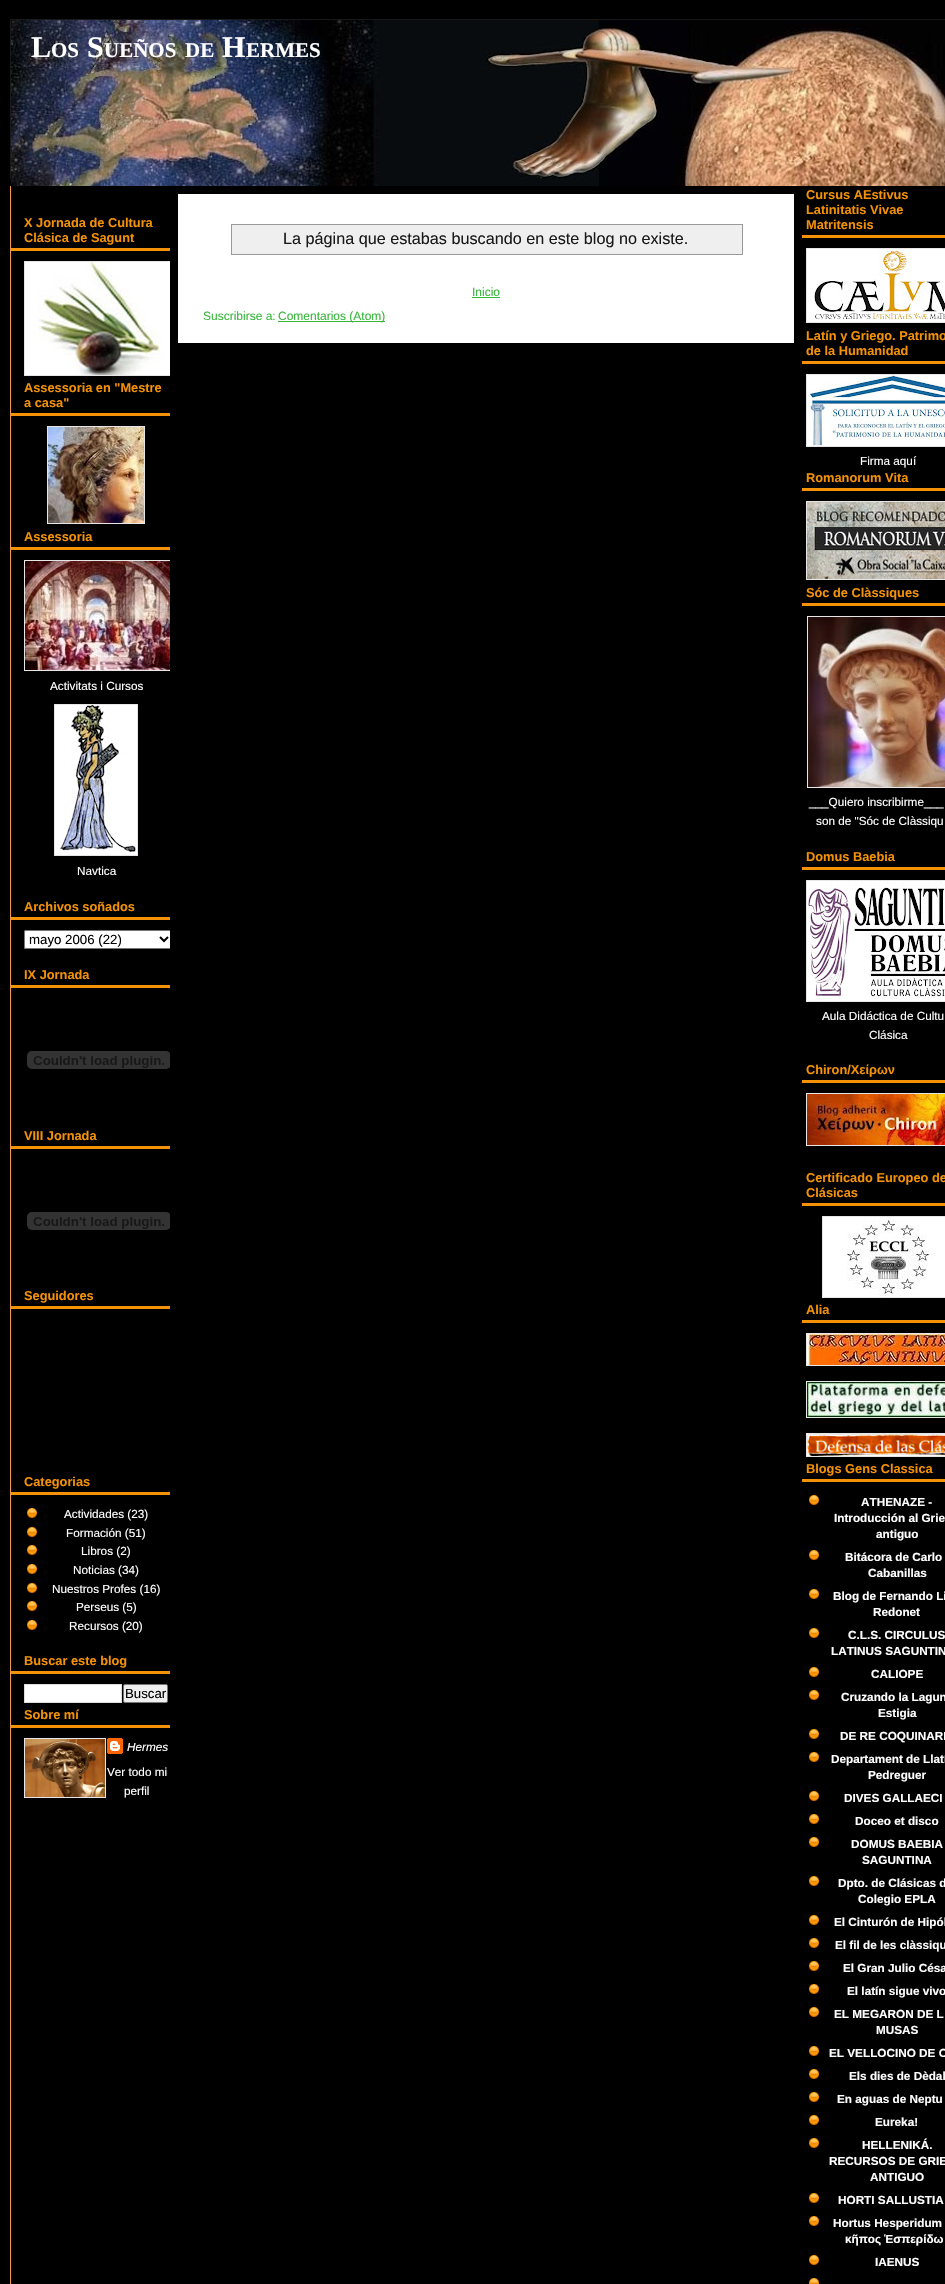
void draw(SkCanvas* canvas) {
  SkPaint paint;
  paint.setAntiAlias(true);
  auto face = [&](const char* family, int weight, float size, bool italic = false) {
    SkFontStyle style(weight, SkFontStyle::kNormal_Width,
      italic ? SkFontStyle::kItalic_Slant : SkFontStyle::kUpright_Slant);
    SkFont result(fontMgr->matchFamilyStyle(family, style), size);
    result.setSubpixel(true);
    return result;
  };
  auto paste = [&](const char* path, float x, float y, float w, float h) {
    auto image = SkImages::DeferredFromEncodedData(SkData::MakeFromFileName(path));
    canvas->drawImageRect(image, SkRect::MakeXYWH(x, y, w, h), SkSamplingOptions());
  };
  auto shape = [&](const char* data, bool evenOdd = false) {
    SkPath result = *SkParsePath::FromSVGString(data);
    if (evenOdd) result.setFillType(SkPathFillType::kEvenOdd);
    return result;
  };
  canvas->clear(0xff000000);
  paint.setStroke(true);
  paint.setStrokeWidth(1);
  paint.setColor(0xff191919);
  canvas->drawRect(SkRect::MakeXYWH(10.5f, 19.5f, 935, 159), paint);
  paste("img/1.png", 11, 20, 934, 166);
  paint.setStroke(false);
  paint.setColor(0xfff2984c);
  canvas->drawRect(SkRect::MakeXYWH(10, 186, 1, 2098), paint);
  paint.setColor(0xfff39107);
  canvas->drawRect(SkRect::MakeXYWH(11, 248, 159, 3), paint);
  canvas->save();
  canvas->clipRect(SkRect::MakeXYWH(11, 186, 159, 1626));
  paint.setStroke(true);
  paint.setColor(0xffe6e6e6);
  canvas->drawRect(SkRect::MakeXYWH(24.5f, 261.5f, 151, 114), paint);
  canvas->restore();
  paste("img/2.png", 25, 262, 145, 113);
  paint.setStroke(false);
  paint.setColor(0xfff39107);
  canvas->drawRect(SkRect::MakeXYWH(11, 413, 159, 3), paint);
  paint.setStroke(true);
  paint.setColor(0xffe6e6e6);
  canvas->drawRect(SkRect::MakeXYWH(47.5f, 426.5f, 97, 97), paint);
  paste("img/3.png", 48, 427, 96, 96);
  paint.setStroke(false);
  paint.setColor(0xfff39107);
  canvas->drawRect(SkRect::MakeXYWH(11, 547, 159, 3), paint);
  canvas->save();
  canvas->clipRect(SkRect::MakeXYWH(11, 186, 159, 1626));
  paint.setStroke(true);
  paint.setColor(0xffe6e6e6);
  canvas->drawRect(SkRect::MakeXYWH(24.5f, 560.5f, 151, 110), paint);
  canvas->restore();
  paste("img/4.png", 25, 561, 145, 109);
  canvas->drawRect(SkRect::MakeXYWH(54.5f, 704.5f, 83, 151), paint);
  paste("img/5.png", 55, 705, 82, 150);
  paint.setStroke(false);
  paint.setColor(0xfff39107);
  canvas->drawRect(SkRect::MakeXYWH(11, 917, 159, 3), paint);
  paint.setColor(0xffffffff);
  canvas->drawPath(shape("M26 930H170V949H26C25 949 24 948 24 947V932C24 931 25 930 26 930Z"), paint);
  canvas->save();
  canvas->clipRect(SkRect::MakeXYWH(11, 186, 159, 1626));
  paint.setStroke(true);
  paint.setColor(0xff767676);
  canvas->drawRoundRect(SkRect::MakeXYWH(24.5f, 930.5f, 148, 18), 1.5f, 1.5f, paint);
  canvas->restore();
  paint.setStrokeWidth(2);
  paint.setColor(0xff000000);
  canvas->drawPath(shape("M160 937L164 941L168 937"), paint);
  paint.setStroke(false);
  paint.setColor(0xfff39107);
  canvas->drawRect(SkRect::MakeXYWH(11, 985, 159, 3), paint);
  paste("img/6.png", 27, 1051, 143, 18);
  canvas->drawRect(SkRect::MakeXYWH(11, 1146, 159, 3), paint);
  paste("img/6.png", 27, 1212, 143, 18);
  canvas->drawRect(SkRect::MakeXYWH(11, 1306, 159, 3), paint);
  canvas->drawRect(SkRect::MakeXYWH(11, 1492, 159, 3), paint);
  paste("img/7.png", 27, 1508, 10, 10);
  paste("img/7.png", 27, 1527, 10, 10);
  paste("img/7.png", 27, 1545, 10, 10);
  paste("img/7.png", 27, 1564, 10, 10);
  paste("img/7.png", 27, 1583, 10, 10);
  paste("img/7.png", 27, 1601, 10, 10);
  paste("img/7.png", 27, 1620, 10, 10);
  canvas->drawRect(SkRect::MakeXYWH(11, 1671, 159, 3), paint);
  paint.setColor(0xffffffff);
  canvas->drawRect(SkRect::MakeXYWH(24.5f, 1684.5f, 97, 18), paint);
  paint.setStroke(true);
  paint.setStrokeWidth(1);
  paint.setColor(0xffdddddd);
  canvas->drawRect(SkRect::MakeXYWH(24.5f, 1684.5f, 97, 18), paint);
  paint.setStroke(false);
  paint.setColor(0xffefefef);
  canvas->drawRoundRect(SkRect::MakeXYWH(123.5f, 1684.5f, 44, 18), 1.5f, 1.5f, paint);
  paint.setStroke(true);
  paint.setColor(0xff767676);
  canvas->drawRoundRect(SkRect::MakeXYWH(123.5f, 1684.5f, 44, 18), 1.5f, 1.5f, paint);
  paint.setStroke(false);
  paint.setColor(0xfff39107);
  canvas->drawRect(SkRect::MakeXYWH(11, 1725, 159, 3), paint);
  paint.setStroke(true);
  paint.setColor(0xffe6e6e6);
  canvas->drawRect(SkRect::MakeXYWH(24.5f, 1738.5f, 81, 59), paint);
  paste("img/8.png", 25, 1739, 80, 58);
  paste("img/9.png", 107, 1738, 16, 16);
  paint.setStroke(false);
  paint.setColor(0xffffffff);
  canvas->drawRect(SkRect::MakeXYWH(178, 194, 616, 149), paint);
  paint.setStroke(true);
  paint.setColor(0xff999999);
  canvas->drawRect(SkRect::MakeXYWH(231.5f, 224.5f, 511, 30), paint);
  paint.setStroke(false);
  {
    const struct { float x, y, w, h; SkColor color; } items[] = {
      {232, 225, 510, 29, 0xffefefef},
      {472, 297, 28, 1, 0xff38b63c},
      {278, 321, 107, 1, 0xff38b63c},
      {802, 235, 143, 3, 0xfff39107},
    };
    for (auto [x, y, w, h, color] : items) {
      paint.setColor(color);
      canvas->drawRect(SkRect::MakeXYWH(x, y, w, h), paint);
    }
  }
  paint.setStroke(true);
  paint.setColor(0xffe6e6e6);
  canvas->drawRect(SkRect::MakeXYWH(806.5f, 248.5f, 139, 74), paint);
  paste("img/10.png", 807, 249, 138, 73);
  paint.setStroke(false);
  paint.setColor(0xfff39107);
  canvas->drawRect(SkRect::MakeXYWH(802, 361, 143, 3), paint);
  paint.setStroke(true);
  paint.setColor(0xffe6e6e6);
  canvas->drawRect(SkRect::MakeXYWH(806.5f, 374.5f, 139, 72), paint);
  paste("img/11.png", 807, 375, 138, 71);
  paint.setStroke(false);
  paint.setColor(0xfff39107);
  canvas->drawRect(SkRect::MakeXYWH(802, 488, 143, 3), paint);
  paint.setStroke(true);
  paint.setColor(0xffe6e6e6);
  canvas->drawRect(SkRect::MakeXYWH(806.5f, 501.5f, 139, 78), paint);
  paste("img/12.png", 807, 502, 138, 77);
  paint.setStroke(false);
  paint.setColor(0xfff39107);
  canvas->drawRect(SkRect::MakeXYWH(802, 603, 143, 3), paint);
  paint.setStroke(true);
  paint.setColor(0xffe6e6e6);
  canvas->drawRect(SkRect::MakeXYWH(807.5f, 616.5f, 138, 171), paint);
  paste("img/13.png", 808, 617, 137, 170);
  paint.setStroke(false);
  paint.setColor(0xfff39107);
  canvas->drawRect(SkRect::MakeXYWH(802, 867, 143, 3), paint);
  paint.setStroke(true);
  paint.setColor(0xffe6e6e6);
  canvas->drawRect(SkRect::MakeXYWH(806.5f, 880.5f, 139, 121), paint);
  paste("img/14.png", 807, 881, 138, 120);
  paint.setStroke(false);
  paint.setColor(0xfff39107);
  canvas->drawRect(SkRect::MakeXYWH(802, 1080, 143, 3), paint);
  paint.setStroke(true);
  paint.setColor(0xffe6e6e6);
  canvas->drawRect(SkRect::MakeXYWH(806.5f, 1093.5f, 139, 52), paint);
  paste("img/15.png", 807, 1094, 138, 51);
  paint.setStroke(false);
  paint.setColor(0xfff39107);
  canvas->drawRect(SkRect::MakeXYWH(802, 1203, 143, 3), paint);
  paint.setStroke(true);
  paint.setColor(0xffe6e6e6);
  canvas->drawRect(SkRect::MakeXYWH(822.5f, 1216.5f, 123, 81), paint);
  paste("img/16.png", 823, 1217, 122, 80);
  paint.setStroke(false);
  paint.setColor(0xfff39107);
  canvas->drawRect(SkRect::MakeXYWH(802, 1320, 143, 3), paint);
  paint.setStroke(true);
  paint.setColor(0xffe6e6e6);
  canvas->drawRect(SkRect::MakeXYWH(806.5f, 1333.5f, 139, 32), paint);
  paste("img/17.png", 807, 1334, 138, 31);
  canvas->drawRect(SkRect::MakeXYWH(806.5f, 1381.5f, 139, 36), paint);
  paste("img/18.png", 807, 1382, 138, 35);
  canvas->drawRect(SkRect::MakeXYWH(806.5f, 1433.5f, 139, 23), paint);
  paste("img/19.png", 807, 1434, 138, 22);
  paint.setStroke(false);
  paint.setColor(0xfff39107);
  canvas->drawRect(SkRect::MakeXYWH(802, 1479, 143, 3), paint);
  paste("img/7.png", 809, 1495, 10, 10);
  paste("img/7.png", 809, 1550, 10, 10);
  paste("img/7.png", 809, 1589, 10, 10);
  paste("img/7.png", 809, 1628, 10, 10);
  paste("img/7.png", 809, 1667, 10, 10);
  paste("img/7.png", 809, 1690, 10, 10);
  paste("img/7.png", 809, 1729, 10, 10);
  paste("img/7.png", 809, 1752, 10, 10);
  paste("img/7.png", 809, 1791, 10, 10);
  paste("img/7.png", 809, 1814, 10, 10);
  paste("img/7.png", 809, 1837, 10, 10);
  paste("img/7.png", 809, 1876, 10, 10);
  paste("img/7.png", 809, 1915, 10, 10);
  paste("img/7.png", 809, 1938, 10, 10);
  paste("img/7.png", 809, 1961, 10, 10);
  paste("img/7.png", 809, 1984, 10, 10);
  paste("img/7.png", 809, 2007, 10, 10);
  paste("img/7.png", 809, 2046, 10, 10);
  paste("img/7.png", 809, 2069, 10, 10);
  paste("img/7.png", 809, 2092, 10, 10);
  paste("img/7.png", 809, 2115, 10, 10);
  paste("img/7.png", 809, 2138, 10, 10);
  paste("img/7.png", 809, 2193, 10, 10);
  paste("img/7.png", 809, 2216, 10, 10);
  paste("img/7.png", 809, 2255, 10, 10);
  paste("img/20.png", 809, 2278, 10, 6);
  auto f0 = face("Liberation Serif", 700, 30);
  paint.setColor(0xffffffff);
  canvas->drawString("L", 31, 57, f0, paint);
  auto f1 = face("Liberation Serif", 700, 21);
  canvas->drawString("OS", 51, 57, f1, paint);
  canvas->drawString("S", 87, 57, f0, paint);
  canvas->drawString("UEÑOS", 104, 57, f1, paint);
  canvas->drawString("DE", 185, 57, f1, paint);
  canvas->drawString("H", 222, 57, f0, paint);
  canvas->drawString("ERMES", 246, 57, f1, paint);
  auto f2 = face("Liberation Sans", 700, 12.8f);
  paint.setColor(0xfff39107);
  {
    const struct { const char* s; float x, y; } items[] = {
      {"X Jornada de Cultura", 24, 227},
      {"Clásica de Sagunt", 24, 242},
      {"Assessoria en \"Mestre", 24, 392},
      {"a casa\"", 24, 407},
      {"Assessoria", 24, 541},
    };
    for (auto [s, x, y] : items) {
      canvas->drawString(s, x, y, f2, paint);
    }
  }
  auto f3 = face("Liberation Sans", 400, 11.75f);
  paint.setColor(0xffffffff);
  canvas->drawString("Activitats i Cursos", 50, 690, f3, paint);
  canvas->drawString("Navtica", 77, 875, f3, paint);
  paint.setColor(0xfff39107);
  canvas->drawString("Archivos soñados", 24, 911, f2, paint);
  auto f4 = face("Liberation Sans", 400, 13.25f);
  paint.setColor(0xff000000);
  canvas->drawString("mayo 2006 (22)", 29, 944, f4, paint);
  paint.setColor(0xfff39107);
  {
    const struct { const char* s; float x, y; } items[] = {
      {"IX Jornada", 24, 979},
      {"VIII Jornada", 24, 1140},
      {"Seguidores", 24, 1300},
      {"Categorias", 24, 1486},
    };
    for (auto [s, x, y] : items) {
      canvas->drawString(s, x, y, f2, paint);
    }
  }
  paint.setColor(0xffffffff);
  {
    const struct { const char* s; float x, y; } items[] = {
      {"Actividades (23)", 64, 1518},
      {"Formación (51)", 66, 1537},
      {"Libros (2)", 81, 1555},
      {"Noticias (34)", 73, 1574},
      {"Nuestros Profes (16)", 52, 1593},
      {"Perseus (5)", 76, 1611},
      {"Recursos (20)", 69, 1630},
    };
    for (auto [s, x, y] : items) {
      canvas->drawString(s, x, y, f3, paint);
    }
  }
  paint.setColor(0xfff39107);
  canvas->drawString("Buscar este blog", 24, 1665, f2, paint);
  paint.setColor(0xff000000);
  canvas->drawString("Buscar", 125, 1698, f4, paint);
  paint.setColor(0xfff39107);
  canvas->drawString("Sobre mí", 24, 1719, f2, paint);
  auto f5 = face("Liberation Sans", 400, 11.75f, true);
  paint.setColor(0xffffffff);
  canvas->drawString("Hermes", 127, 1751, f5, paint);
  canvas->drawString("Ver todo mi", 107, 1776, f3, paint);
  canvas->drawString("perfil", 124, 1795, f3, paint);
  auto f6 = face("Liberation Sans", 400, 16.2f);
  paint.setColor(0xff191919);
  canvas->drawString("La página que estabas buscando en este blog no existe.", 283, 244, f6, paint);
  auto f7 = face("Liberation Sans", 400, 12);
  paint.setColor(0xff38b63c);
  {
    const struct { const char* s; float x, y; } items[] = {
      {"Inicio", 472, 296},
      {"Suscribirse a:", 203, 320},
      {"Comentarios (Atom)", 278, 320},
    };
    for (auto [s, x, y] : items) {
      canvas->drawString(s, x, y, f7, paint);
    }
  }
  paint.setColor(0xfff39107);
  {
    const struct { const char* s; float x, y; } items[] = {
      {"Cursus AEstivus", 806, 199},
      {"Latinitatis Vivae", 806, 214},
      {"Matritensis", 806, 229},
      {"Latín y Griego. Patrimo", 806, 340},
      {"de la Humanidad", 806, 355},
    };
    for (auto [s, x, y] : items) {
      canvas->drawString(s, x, y, f2, paint);
    }
  }
  paint.setColor(0xffffffff);
  canvas->drawString("Firma aquí", 860, 465, f3, paint);
  paint.setColor(0xfff39107);
  canvas->drawString("Romanorum Vita", 806, 482, f2, paint);
  canvas->drawString("Sóc de Clàssiques", 806, 597, f2, paint);
  paint.setColor(0xffffffff);
  canvas->drawString("___Quiero inscribirme___", 809, 806, f3, paint);
  canvas->drawString("son de \"Sóc de Clàssiqu", 816, 825, f3, paint);
  paint.setColor(0xfff39107);
  canvas->drawString("Domus Baebia", 806, 861, f2, paint);
  paint.setColor(0xffffffff);
  canvas->drawString("Aula Didáctica de Cultur", 822, 1020, f3, paint);
  canvas->drawString("Clásica", 869, 1039, f3, paint);
  paint.setColor(0xfff39107);
  {
    const struct { const char* s; float x, y; } items[] = {
      {"Chiron/Χείρων", 806, 1074},
      {"Certificado Europeo de", 806, 1182},
      {"Clásicas", 806, 1197},
      {"Alia", 806, 1314},
      {"Blogs Gens Classica", 806, 1473},
    };
    for (auto [s, x, y] : items) {
      canvas->drawString(s, x, y, f2, paint);
    }
  }
  auto f8 = face("Liberation Sans", 700, 11.75f);
  paint.setColor(0xffffffff);
  {
    const struct { const char* s; float x, y; } items[] = {
      {"ATHENAZE -", 861, 1506},
      {"Introducción al Grie", 834, 1522},
      {"antiguo", 876, 1538},
      {"Bitácora de Carlo", 845, 1561},
      {"Cabanillas", 868, 1577},
      {"Blog de Fernando Li", 833, 1600},
      {"Redonet", 873, 1616},
      {"C.L.S. CIRCULUS", 848, 1639},
      {"LATINUS SAGUNTIN", 831, 1655},
      {"CALIOPE", 871, 1678},
      {"Cruzando la Lagun", 841, 1701},
      {"Estigia", 878, 1717},
      {"DE RE COQUINARI", 840, 1740},
      {"Departament de Llatí", 831, 1763},
      {"Pedreguer", 868, 1779},
      {"DIVES GALLAECI", 844, 1802},
      {"Doceo et disco", 855, 1825},
      {"DOMUS BAEBIA", 851, 1848},
      {"SAGUNTINA", 862, 1864},
      {"Dpto. de Clásicas d", 838, 1887},
      {"Colegio EPLA", 858, 1903},
      {"El Cinturón de Hipól", 834, 1926},
      {"El fil de les clàssiqu", 835, 1949},
      {"El Gran Julio Césa", 843, 1972},
      {"El latín sigue vivo", 847, 1995},
      {"EL MEGARON DE L", 834, 2018},
      {"MUSAS", 876, 2034},
      {"EL VELLOCINO DE O", 829, 2057},
      {"Els dies de Dèdal", 849, 2080},
      {"En aguas de Neptu", 837, 2103},
      {"Eureka!", 875, 2126},
      {"HELLENIKÁ.", 862, 2149},
      {"RECURSOS DE GRIE", 829, 2165},
      {"ANTIGUO", 870, 2181},
      {"HORTI SALLUSTIA", 838, 2204},
      {"Hortus Hesperidum", 833, 2227},
      {"κῆπος Ἑσπερίδω", 845, 2243},
      {"IAENUS", 875, 2266},
    };
    for (auto [s, x, y] : items) {
      canvas->drawString(s, x, y, f8, paint);
    }
  }
}
